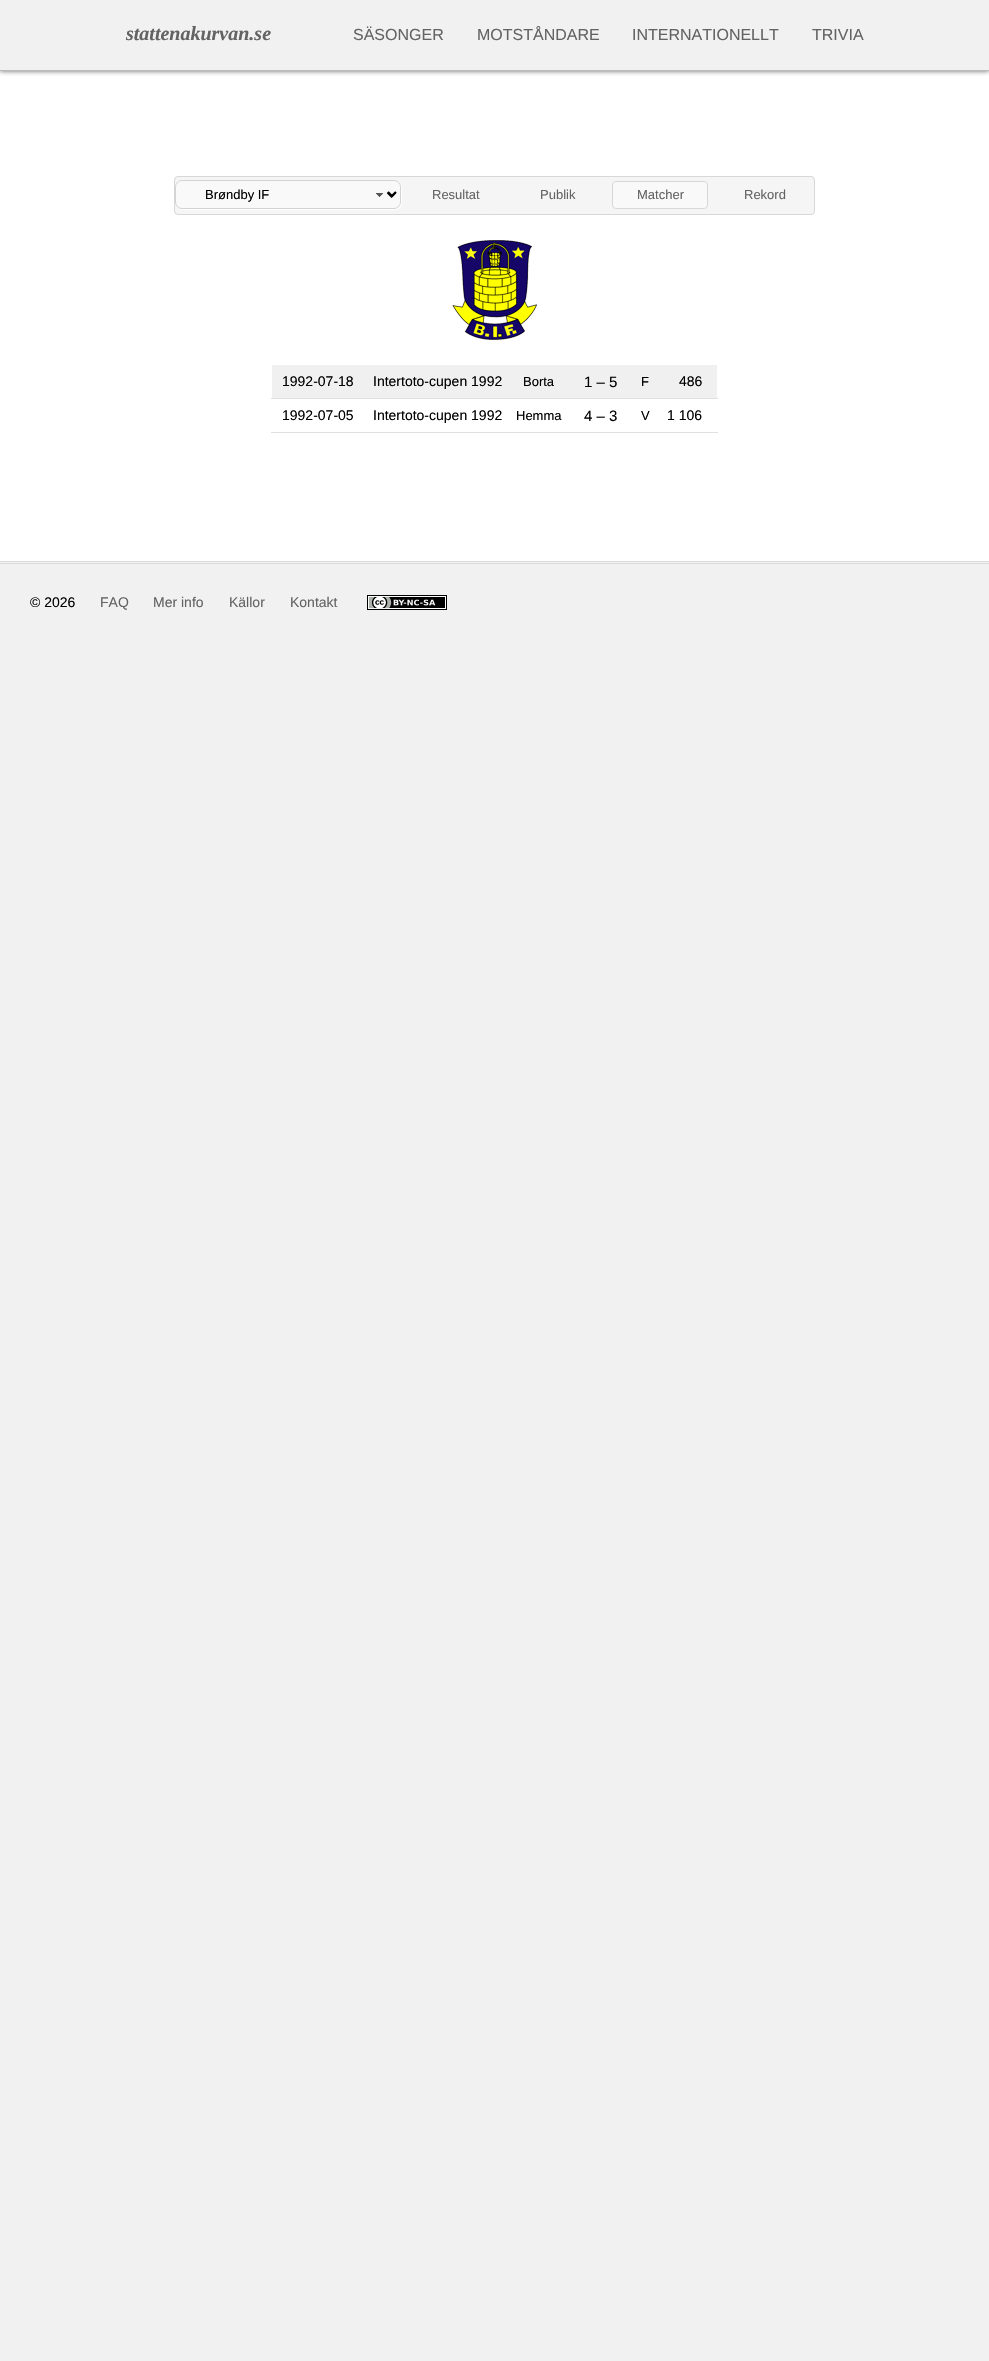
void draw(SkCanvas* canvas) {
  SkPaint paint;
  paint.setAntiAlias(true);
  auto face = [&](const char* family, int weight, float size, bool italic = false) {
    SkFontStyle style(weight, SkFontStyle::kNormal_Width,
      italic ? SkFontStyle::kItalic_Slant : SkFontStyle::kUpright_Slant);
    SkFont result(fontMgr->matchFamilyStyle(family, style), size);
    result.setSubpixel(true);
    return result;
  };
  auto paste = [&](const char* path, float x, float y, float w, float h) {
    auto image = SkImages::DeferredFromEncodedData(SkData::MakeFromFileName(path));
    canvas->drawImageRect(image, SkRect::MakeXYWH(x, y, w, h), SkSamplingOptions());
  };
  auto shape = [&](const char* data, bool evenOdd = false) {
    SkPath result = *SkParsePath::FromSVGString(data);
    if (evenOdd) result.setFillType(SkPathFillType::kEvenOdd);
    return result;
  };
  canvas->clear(0xfff1f1f1);
  paint.setColor(0xffffffff);
  canvas->drawRect(SkRect::MakeXYWH(0, 71, 989, 490), paint);
  canvas->save();
  canvas->clipRect(SkRect::MakeXYWH(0, 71, 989, 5));
  paint.setColor(0xff666666);
  paint.setMaskFilter(SkMaskFilter::MakeBlur(kNormal_SkBlurStyle, 2.5f));
  canvas->drawRect(SkRect::MakeXYWH(0, 0, 989, 71), paint);
  paint.setMaskFilter(nullptr);
  canvas->restore();
  paint.setColor(0xffbbbbbb);
  canvas->drawRect(SkRect::MakeXYWH(0, 70, 989, 1), paint);
  paint.setColor(0xfff5f5f5);
  canvas->drawRoundRect(SkRect::MakeXYWH(174.5f, 176.5f, 640, 38), 3.5f, 3.5f, paint);
  paint.setStroke(true);
  paint.setStrokeWidth(1);
  paint.setColor(0xffd7d7d7);
  canvas->drawRoundRect(SkRect::MakeXYWH(174.5f, 176.5f, 640, 38), 3.5f, 3.5f, paint);
  paint.setStroke(false);
  paint.setColor(0xffffffff);
  paint.setMaskFilter(SkMaskFilter::MakeBlur(kNormal_SkBlurStyle, 0.5f));
  canvas->drawRoundRect(SkRect::MakeXYWH(176, 181, 226, 29), 7, 7, paint);
  paint.setMaskFilter(nullptr);
  paint.setColor(0xfff9f9f9);
  canvas->drawRoundRect(SkRect::MakeXYWH(175, 180, 226, 29), 7, 7, paint);
  paste("img/1.png", 376, 191, 21, 7);
  paint.setStroke(true);
  paint.setColor(0xffd3d3d3);
  canvas->drawRoundRect(SkRect::MakeXYWH(175.5f, 180.5f, 225, 28), 6.5f, 6.5f, paint);
  paint.setStrokeWidth(2);
  paint.setColor(0xff000000);
  canvas->drawPath(shape("M387.5 192.5L391.5 196.5L395.5 192.5"), paint);
  paint.setStroke(false);
  paint.setColor(0xfff9f9f9);
  canvas->drawRoundRect(SkRect::MakeXYWH(612.5f, 181.5f, 95, 27), 3.5f, 3.5f, paint);
  paint.setStroke(true);
  paint.setStrokeWidth(1);
  paint.setColor(0xffd7d7d7);
  canvas->drawRoundRect(SkRect::MakeXYWH(612.5f, 181.5f, 95, 27), 3.5f, 3.5f, paint);
  paste("img/2.png", 452, 240, 85, 100);
  paint.setStroke(false);
  {
    const struct { float x, y, w, h; SkColor color; } items[] = {
      {272, 365, 445, 33, 0xfff0f0f0},
      {271, 398, 447, 1, 0xffe0e0e0},
      {271, 432, 447, 1, 0xffe0e0e0},
      {0, 561, 989, 1, 0xffdbdbdb},
      {0, 563, 989, 1, 0xffdbdbdb},
    };
    for (auto [x, y, w, h, color] : items) {
      paint.setColor(color);
      canvas->drawRect(SkRect::MakeXYWH(x, y, w, h), paint);
    }
  }
  paste("img/3.png", 367, 595, 80, 15);
  auto f0 = face("Liberation Serif", 700, 20, true);
  paint.setColor(0xff636363);
  canvas->drawString("stattenakurvan.se", 126, 40, f0, paint);
  auto f1 = face("Liberation Sans", 400, 16);
  {
    const struct { const char* s; float x, y; } items[] = {
      {"SÄSONGER", 353, 40},
      {"MOTSTÅNDARE", 477, 40},
      {"INTERNATIONELLT", 632, 40},
      {"TRIVIA", 812, 40},
    };
    for (auto [s, x, y] : items) {
      canvas->drawString(s, x, y, f1, paint);
    }
  }
  auto f2 = face("Liberation Sans", 400, 13);
  paint.setColor(0xff000000);
  canvas->drawString("Brøndby IF", 205, 199, f2, paint);
  paint.setColor(0xff636363);
  {
    const struct { const char* s; float x, y; } items[] = {
      {"Resultat", 432, 199},
      {"Publik", 540, 199},
      {"Matcher", 637, 199},
      {"Rekord", 744, 199},
    };
    for (auto [s, x, y] : items) {
      canvas->drawString(s, x, y, f2, paint);
    }
  }
  auto f3 = face("Liberation Sans", 400, 14);
  paint.setColor(0xff000000);
  canvas->drawString("1992-07-18", 282, 386, f3, paint);
  canvas->drawString("Intertoto-cupen 1992", 373, 386, f3, paint);
  canvas->drawString("Borta", 523, 386, f2, paint);
  auto f4 = face("Liberation Sans", 400, 15);
  canvas->drawString("1 – 5", 584, 387, f4, paint);
  canvas->drawString("F", 641, 386, f2, paint);
  {
    const struct { const char* s; float x, y; } items[] = {
      {"486", 679, 386},
      {"1992-07-05", 282, 420},
      {"Intertoto-cupen 1992", 373, 420},
    };
    for (auto [s, x, y] : items) {
      canvas->drawString(s, x, y, f3, paint);
    }
  }
  canvas->drawString("Hemma", 516, 420, f2, paint);
  canvas->drawString("4 – 3", 584, 421, f4, paint);
  canvas->drawString("V", 641, 420, f2, paint);
  canvas->drawString("1 106", 667, 420, f3, paint);
  canvas->drawString("© 2026", 30, 607, f3, paint);
  paint.setColor(0xff636363);
  {
    const struct { const char* s; float x, y; } items[] = {
      {"FAQ", 100, 607},
      {"Mer info", 153, 607},
      {"Källor", 229, 607},
      {"Kontakt", 290, 607},
    };
    for (auto [s, x, y] : items) {
      canvas->drawString(s, x, y, f3, paint);
    }
  }
}
